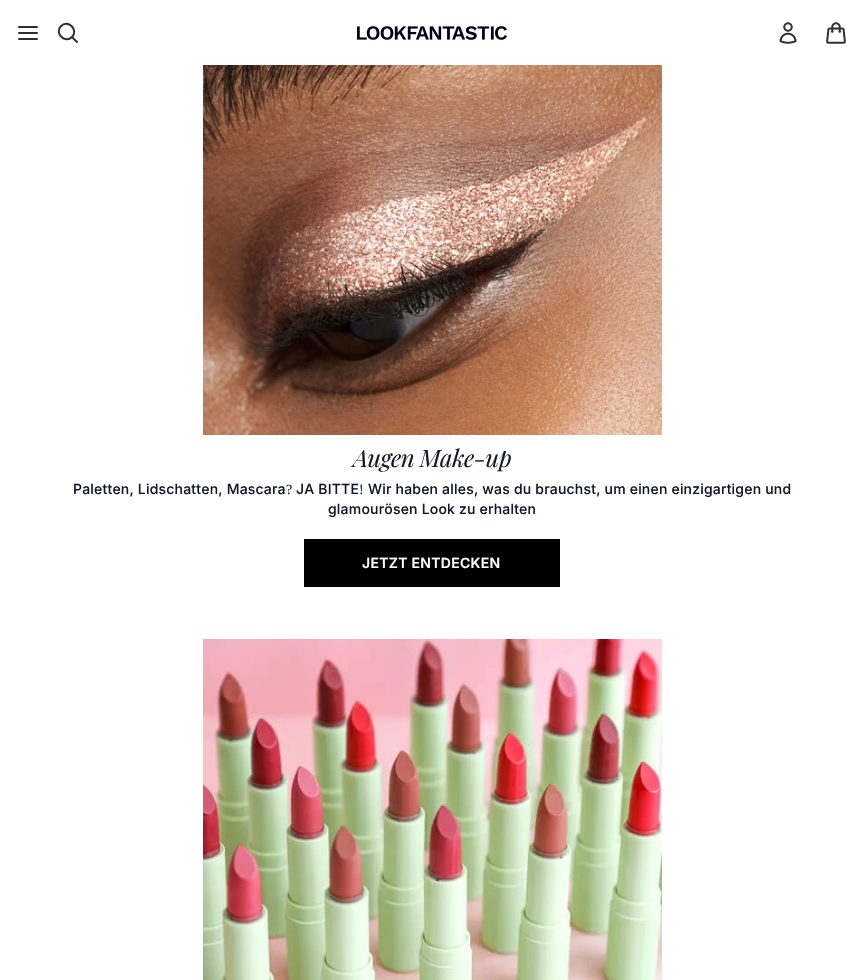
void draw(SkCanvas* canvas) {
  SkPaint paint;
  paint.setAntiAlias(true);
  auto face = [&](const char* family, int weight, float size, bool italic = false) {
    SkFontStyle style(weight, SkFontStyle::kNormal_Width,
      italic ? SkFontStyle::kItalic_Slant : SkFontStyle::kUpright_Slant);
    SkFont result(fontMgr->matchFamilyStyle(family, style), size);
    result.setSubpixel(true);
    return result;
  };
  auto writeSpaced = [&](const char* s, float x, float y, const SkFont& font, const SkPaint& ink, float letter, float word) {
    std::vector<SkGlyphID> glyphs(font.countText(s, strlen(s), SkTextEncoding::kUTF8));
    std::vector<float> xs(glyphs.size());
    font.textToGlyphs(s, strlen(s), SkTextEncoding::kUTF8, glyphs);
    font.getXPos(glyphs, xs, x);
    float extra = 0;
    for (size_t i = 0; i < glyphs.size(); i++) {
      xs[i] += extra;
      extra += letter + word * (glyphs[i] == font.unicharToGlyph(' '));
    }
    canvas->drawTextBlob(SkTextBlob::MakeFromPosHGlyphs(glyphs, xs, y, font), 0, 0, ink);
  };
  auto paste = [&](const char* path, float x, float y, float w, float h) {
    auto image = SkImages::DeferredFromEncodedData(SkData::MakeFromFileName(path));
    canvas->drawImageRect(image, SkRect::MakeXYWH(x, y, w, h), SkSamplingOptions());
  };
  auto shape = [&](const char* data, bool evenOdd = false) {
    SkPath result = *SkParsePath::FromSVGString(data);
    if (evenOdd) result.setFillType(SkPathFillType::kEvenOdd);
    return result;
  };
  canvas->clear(0xffffffff);
  paint.setStroke(true);
  paint.setStrokeWidth(2);
  paint.setStrokeCap(SkPaint::kRound_Cap);
  paint.setStrokeJoin(SkPaint::kRound_Join);
  paint.setColor(0xff303030);
  canvas->drawPath(shape("M19 33H37M19 27H37M19 39H37M77 42L72 37M72 37C79 30 68 19 61 26C54 33 65 44 72 37Z"), paint);
  paste("img/1.png", 357, 26, 150, 14);
  paste("img/2.png", 779, 22, 18, 22);
  paste("img/3.png", 826, 22, 20, 22);
  paste("img/4.png", 203, 65, 459, 370);
  paint.setStroke(false);
  paint.setColor(0xff000000);
  canvas->drawRect(SkRect::MakeXYWH(304, 539, 256, 48), paint);
  paste("img/5.png", 203, 639, 459, 341);
  auto f0 = face("Playfair Display", 400, 24, true);
  paint.setColor(0xff111827);
  writeSpaced("Augen Make-up", 353, 467, f0, paint, -0.5f, 0);
  auto f1 = face("Inter", 500, 14);
  writeSpaced("Paletten, Lidschatten, Mascara", 73, 494, f1, paint, 0.2f, 0);
  auto f2 = face("Liberation Serif", 400, 14);
  writeSpaced("?", 286, 494, f2, paint, 0.2f, 0);
  writeSpaced("JA BITTE", 296, 494, f1, paint, 0.2f, 0);
  writeSpaced("!", 359, 494, f2, paint, 0.2f, 0);
  writeSpaced("Wir haben alles, was du brauchst, um einen einzigartigen und", 368, 494, f1, paint, 0.2f, 0);
  writeSpaced("glamourösen Look zu erhalten", 328, 514, f1, paint, 0.2f, 0);
  auto f3 = face("Inter", 600, 14);
  paint.setColor(0xffffffff);
  writeSpaced("JETZT ENTDECKEN", 362, 568, f3, paint, 0.3f, 0);
}
